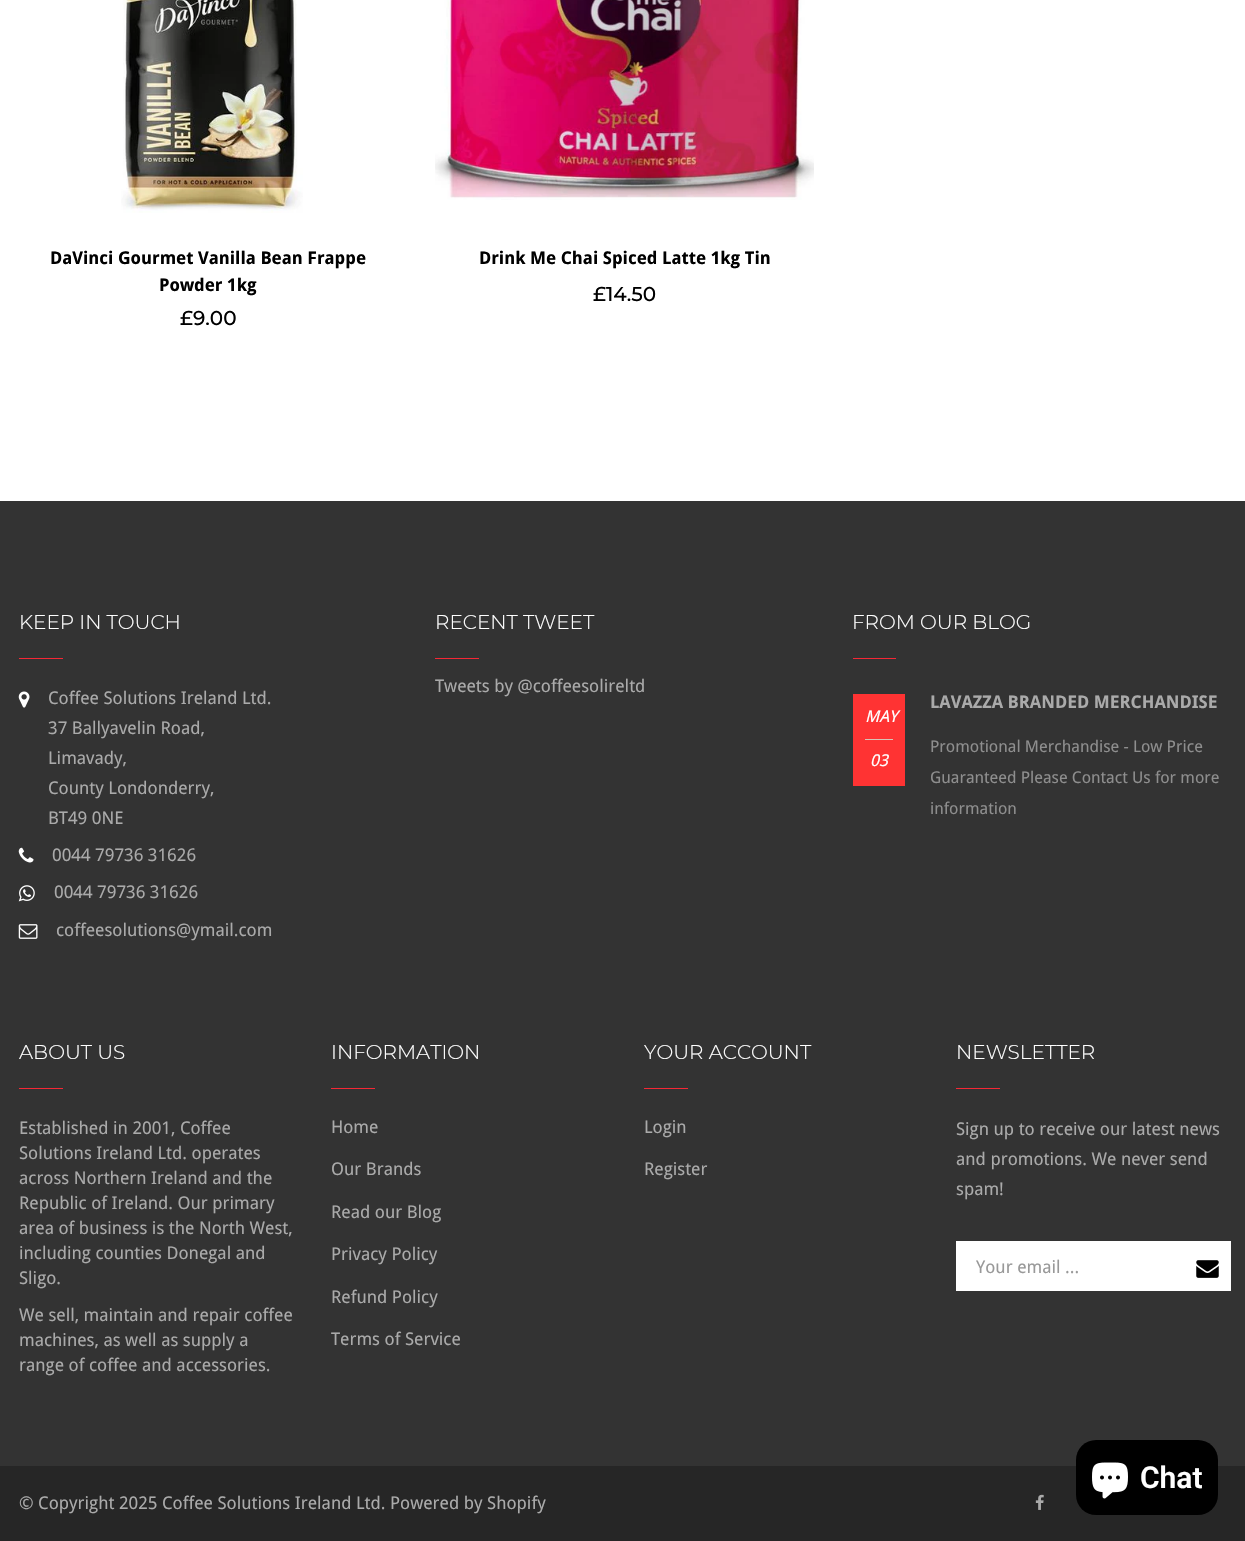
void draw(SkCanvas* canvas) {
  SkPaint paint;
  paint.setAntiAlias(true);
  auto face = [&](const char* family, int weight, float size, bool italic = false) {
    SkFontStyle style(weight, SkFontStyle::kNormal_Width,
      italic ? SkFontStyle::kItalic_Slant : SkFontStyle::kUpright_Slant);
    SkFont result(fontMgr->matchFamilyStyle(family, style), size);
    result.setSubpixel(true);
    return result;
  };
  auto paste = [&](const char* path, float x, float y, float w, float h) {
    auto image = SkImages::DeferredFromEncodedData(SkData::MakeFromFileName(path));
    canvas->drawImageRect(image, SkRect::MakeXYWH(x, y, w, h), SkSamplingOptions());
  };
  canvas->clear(0xffffffff);
  paste("img/1.png", 121, 0, 182, 213);
  paste("img/2.png", 435, 0, 379, 200);
  paint.setColor(0xff333333);
  canvas->drawRect(SkRect::MakeXYWH(0, 501, 1245, 965), paint);
  paint.setColor(0xfff52835);
  canvas->drawRect(SkRect::MakeXYWH(19, 658, 44, 1), paint);
  paste("img/3.png", 18, 691, 12, 17);
  paste("img/4.png", 18, 847, 16, 16);
  paste("img/5.png", 18, 885, 17, 17);
  paste("img/6.png", 18, 924, 20, 15);
  {
    const struct { float x, y, w, h; SkColor color; } items[] = {
      {435, 658, 44, 1, 0xfff52835},
      {853, 658, 43, 1, 0xfff52835},
      {853, 694, 52, 92, 0xffff3333},
      {865, 739, 28, 1, 0xffd8c4b6},
      {19, 1088, 44, 1, 0xfff52835},
      {331, 1088, 44, 1, 0xfff52835},
      {644, 1088, 44, 1, 0xfff52835},
      {956, 1088, 44, 1, 0xfff52835},
      {956, 1241, 275, 50, 0xffffffff},
    };
    for (auto [x, y, w, h, color] : items) {
      paint.setColor(color);
      canvas->drawRect(SkRect::MakeXYWH(x, y, w, h), paint);
    }
  }
  paste("img/7.png", 1196, 1260, 23, 18);
  paint.setColor(0xff262626);
  canvas->drawRect(SkRect::MakeXYWH(0, 1466, 1245, 75), paint);
  paste("img/8.png", 1035, 1494, 9, 16);
  paint.setColor(0xff000000);
  canvas->drawRoundRect(SkRect::MakeXYWH(1076, 1440, 142, 75), 20, 20, paint);
  paste("img/9.png", 1092, 1462, 36, 37);
  auto f0 = face("Droid Sans", 700, 17.5f);
  canvas->drawString("DaVinci Gourmet Vanilla Bean Frappe", 50, 264, f0, paint);
  canvas->drawString("Powder 1kg", 159, 291, f0, paint);
  auto f1 = face("Montserrat", 500, 20);
  canvas->drawString("£9.00", 180, 325, f1, paint);
  canvas->drawString("Drink Me Chai Spiced Latte 1kg Tin", 479, 264, f0, paint);
  canvas->drawString("£14.50", 593, 301, f1, paint);
  auto f2 = face("Montserrat", 300, 20);
  paint.setColor(0xffffffff);
  canvas->drawString("KEEP IN TOUCH", 19, 629, f2, paint);
  auto f3 = face("Droid Sans", 400, 17.5f);
  paint.setColor(0xffaaaaaa);
  {
    const struct { const char* s; float x, y; } items[] = {
      {"Coffee Solutions Ireland Ltd.", 48, 704},
      {"37 Ballyavelin Road,", 48, 734},
      {"Limavady,", 48, 764},
      {"County Londonderry,", 48, 794},
      {"BT49 0NE", 48, 824},
      {"0044 79736 31626", 52, 861},
      {"0044 79736 31626", 54, 898},
      {"coffeesolutions@ymail.com", 56, 936},
    };
    for (auto [s, x, y] : items) {
      canvas->drawString(s, x, y, f3, paint);
    }
  }
  paint.setColor(0xffffffff);
  canvas->drawString("RECENT TWEET", 435, 629, f2, paint);
  paint.setColor(0xffaaaaaa);
  canvas->drawString("Tweets by @coffeesolireltd", 435, 692, f3, paint);
  paint.setColor(0xffffffff);
  canvas->drawString("FROM OUR BLOG", 852, 629, f2, paint);
  auto f4 = face("Droid Sans", 400, 16.25f, true);
  canvas->drawString("MAY", 865, 722, f4, paint);
  canvas->drawString("03", 870, 766, f4, paint);
  paint.setColor(0xffaaaaaa);
  canvas->drawString("LAVAZZA BRANDED MERCHANDISE", 930, 708, f0, paint);
  auto f5 = face("Droid Sans", 400, 16.25f);
  paint.setColor(0xff8e8e8e);
  {
    const struct { const char* s; float x, y; } items[] = {
      {"Promotional Merchandise - Low Price", 930, 752},
      {"Guaranteed Please Contact Us for more", 930, 783},
      {"information", 930, 814},
    };
    for (auto [s, x, y] : items) {
      canvas->drawString(s, x, y, f5, paint);
    }
  }
  paint.setColor(0xffffffff);
  canvas->drawString("ABOUT US", 19, 1059, f2, paint);
  paint.setColor(0xffaaaaaa);
  {
    const struct { const char* s; float x, y; } items[] = {
      {"Established in 2001, Coffee", 19, 1134},
      {"Solutions Ireland Ltd. operates", 19, 1159},
      {"across Northern Ireland and the", 19, 1184},
      {"Republic of Ireland. Our primary", 19, 1209},
      {"area of business is the North West,", 19, 1234},
      {"including counties Donegal and", 19, 1259},
      {"Sligo.", 19, 1284},
      {"We sell, maintain and repair coffee", 19, 1321},
      {"machines, as well as supply a", 19, 1346},
      {"range of coffee and accessories.", 19, 1371},
    };
    for (auto [s, x, y] : items) {
      canvas->drawString(s, x, y, f3, paint);
    }
  }
  paint.setColor(0xffffffff);
  canvas->drawString("INFORMATION", 331, 1059, f2, paint);
  paint.setColor(0xffaaaaaa);
  {
    const struct { const char* s; float x, y; } items[] = {
      {"Home", 331, 1133},
      {"Our Brands", 331, 1175},
      {"Read our Blog", 331, 1218},
      {"Privacy Policy", 331, 1260},
      {"Refund Policy", 331, 1303},
      {"Terms of Service", 331, 1345},
    };
    for (auto [s, x, y] : items) {
      canvas->drawString(s, x, y, f3, paint);
    }
  }
  paint.setColor(0xffffffff);
  canvas->drawString("YOUR ACCOUNT", 644, 1059, f2, paint);
  paint.setColor(0xffaaaaaa);
  canvas->drawString("Login", 644, 1133, f3, paint);
  canvas->drawString("Register", 644, 1175, f3, paint);
  paint.setColor(0xffffffff);
  canvas->drawString("NEWSLETTER", 956, 1059, f2, paint);
  paint.setColor(0xffaaaaaa);
  {
    const struct { const char* s; float x, y; } items[] = {
      {"Sign up to receive our latest news", 956, 1135},
      {"and promotions. We never send", 956, 1165},
      {"spam!", 956, 1195},
    };
    for (auto [s, x, y] : items) {
      canvas->drawString(s, x, y, f3, paint);
    }
  }
  paint.setColor(0xff999999);
  canvas->drawString("Your email ...", 976, 1273, f3, paint);
  paint.setColor(0xffaaaaaa);
  canvas->drawString("© Copyright 2025 Coffee Solutions Ireland Ltd. Powered by Shopify", 19, 1509, f3, paint);
  auto f6 = face("Roboto", 600, 30);
  paint.setColor(0xffffffff);
  canvas->drawString("Chat", 1140, 1488, f6, paint);
}
